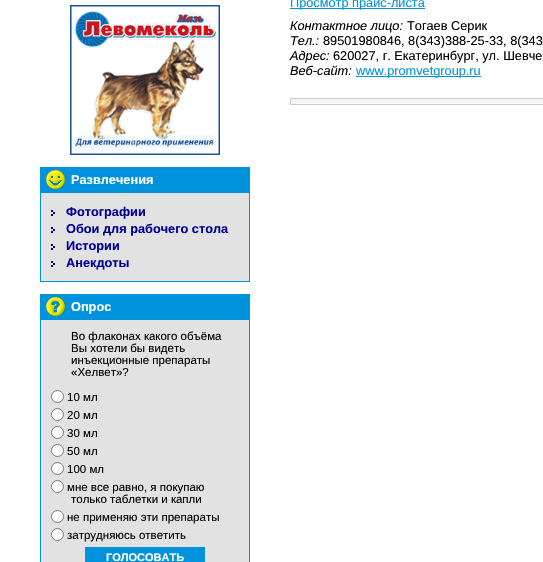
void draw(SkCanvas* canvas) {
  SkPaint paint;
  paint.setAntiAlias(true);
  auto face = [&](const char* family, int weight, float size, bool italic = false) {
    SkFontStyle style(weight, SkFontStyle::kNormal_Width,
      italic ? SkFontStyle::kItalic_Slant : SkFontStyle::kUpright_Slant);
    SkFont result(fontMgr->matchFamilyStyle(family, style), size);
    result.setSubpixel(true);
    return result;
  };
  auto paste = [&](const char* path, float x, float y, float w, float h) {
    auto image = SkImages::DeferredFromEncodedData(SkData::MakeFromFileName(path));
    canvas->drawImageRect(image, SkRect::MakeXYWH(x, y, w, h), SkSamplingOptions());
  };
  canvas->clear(0xffffffff);
  paint.setColor(0xff0093dd);
  canvas->drawRect(SkRect::MakeXYWH(290, 8, 135, 1), paint);
  canvas->drawRect(SkRect::MakeXYWH(356, 76, 125, 1), paint);
  paint.setColor(0xfff6f6f6);
  canvas->drawRect(SkRect::MakeXYWH(290.5f, 98.5f, 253, 6), paint);
  paint.setStroke(true);
  paint.setStrokeWidth(1);
  paint.setColor(0xffcccccc);
  canvas->drawRect(SkRect::MakeXYWH(290.5f, 98.5f, 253, 6), paint);
  paste("img/1.png", 70, 5, 150, 150);
  paint.setStroke(false);
  {
    const struct { float x, y, w, h; SkColor color; } items[] = {
      {249, 167, 1, 115, 0xff0093dd},
      {40, 281, 210, 1, 0xff0093dd},
      {40, 167, 1, 115, 0xff0093dd},
      {41, 167, 208, 26, 0xff0093dd},
    };
    for (auto [x, y, w, h, color] : items) {
      paint.setColor(color);
      canvas->drawRect(SkRect::MakeXYWH(x, y, w, h), paint);
    }
  }
  paste("img/2.png", 43, 169, 24, 21);
  paint.setColor(0xffe2e2e2);
  canvas->drawRect(SkRect::MakeXYWH(41, 193, 208, 88), paint);
  paste("img/3.png", 51, 210, 4, 6);
  paste("img/3.png", 51, 227, 4, 6);
  paste("img/3.png", 51, 244, 4, 6);
  paste("img/3.png", 51, 261, 4, 6);
  {
    const struct { float x, y, w, h; SkColor color; } items[] = {
      {249, 294, 1, 268, 0xff0093dd},
      {40, 294, 1, 268, 0xff0093dd},
      {41, 294, 208, 26, 0xff0093dd},
    };
    for (auto [x, y, w, h, color] : items) {
      paint.setColor(color);
      canvas->drawRect(SkRect::MakeXYWH(x, y, w, h), paint);
    }
  }
  paste("img/4.png", 45, 295, 21, 22);
  paint.setColor(0xffe2e2e2);
  canvas->drawRect(SkRect::MakeXYWH(41, 320, 208, 242), paint);
  paint.setColor(0xffffffff);
  canvas->drawCircle(57.5f, 396.5f, 6, paint);
  paint.setStroke(true);
  paint.setColor(0xff767676);
  canvas->drawCircle(57.5f, 396.5f, 6, paint);
  paint.setStroke(false);
  paint.setColor(0xffffffff);
  canvas->drawCircle(57.5f, 414.5f, 6, paint);
  paint.setStroke(true);
  paint.setColor(0xff767676);
  canvas->drawCircle(57.5f, 414.5f, 6, paint);
  paint.setStroke(false);
  paint.setColor(0xffffffff);
  canvas->drawCircle(57.5f, 432.5f, 6, paint);
  paint.setStroke(true);
  paint.setColor(0xff767676);
  canvas->drawCircle(57.5f, 432.5f, 6, paint);
  paint.setStroke(false);
  paint.setColor(0xffffffff);
  canvas->drawCircle(57.5f, 450.5f, 6, paint);
  paint.setStroke(true);
  paint.setColor(0xff767676);
  canvas->drawCircle(57.5f, 450.5f, 6, paint);
  paint.setStroke(false);
  paint.setColor(0xffffffff);
  canvas->drawCircle(57.5f, 468.5f, 6, paint);
  paint.setStroke(true);
  paint.setColor(0xff767676);
  canvas->drawCircle(57.5f, 468.5f, 6, paint);
  paint.setStroke(false);
  paint.setColor(0xffffffff);
  canvas->drawCircle(57.5f, 486.5f, 6, paint);
  paint.setStroke(true);
  paint.setColor(0xff767676);
  canvas->drawCircle(57.5f, 486.5f, 6, paint);
  paint.setStroke(false);
  paint.setColor(0xffffffff);
  canvas->drawCircle(57.5f, 516.5f, 6, paint);
  paint.setStroke(true);
  paint.setColor(0xff767676);
  canvas->drawCircle(57.5f, 516.5f, 6, paint);
  paint.setStroke(false);
  paint.setColor(0xffffffff);
  canvas->drawCircle(57.5f, 534.5f, 6, paint);
  paint.setStroke(true);
  paint.setColor(0xff767676);
  canvas->drawCircle(57.5f, 534.5f, 6, paint);
  paint.setStroke(false);
  paint.setColor(0xff0093dd);
  canvas->drawRect(SkRect::MakeXYWH(85, 547, 120, 15), paint);
  auto f0 = face("Liberation Sans", 400, 12.75f);
  canvas->drawString("Просмотр прайс-листа", 290, 7, f0, paint);
  auto f1 = face("Liberation Sans", 400, 12.75f, true);
  paint.setColor(0xff000000);
  canvas->drawString("Контактное лицо:", 290, 30, f1, paint);
  canvas->drawString("Тогаев Серик", 407, 30, f0, paint);
  canvas->drawString("Тел.:", 290, 45, f1, paint);
  canvas->drawString("89501980846, 8(343)388-25-33, 8(343", 323, 45, f0, paint);
  canvas->drawString("Адрес:", 290, 60, f1, paint);
  canvas->drawString("620027, г. Екатеринбург, ул. Шевче", 333, 60, f0, paint);
  canvas->drawString("Веб-сайт:", 290, 75, f1, paint);
  paint.setColor(0xff0093dd);
  canvas->drawString("www.promvetgroup.ru", 356, 75, f0, paint);
  auto f2 = face("Liberation Sans", 700, 12.75f);
  paint.setColor(0xffffffff);
  canvas->drawString("Развлечения", 71, 184, f2, paint);
  paint.setColor(0xff000099);
  {
    const struct { const char* s; float x, y; } items[] = {
      {"Фотографии", 66, 216},
      {"Обои для рабочего стола", 66, 233},
      {"Истории", 66, 250},
      {"Анекдоты", 66, 267},
    };
    for (auto [s, x, y] : items) {
      canvas->drawString(s, x, y, f2, paint);
    }
  }
  paint.setColor(0xffffffff);
  canvas->drawString("Опрос", 71, 311, f2, paint);
  auto f3 = face("Liberation Sans", 400, 11.5f);
  paint.setColor(0xff000000);
  {
    const struct { const char* s; float x, y; } items[] = {
      {"Во флаконах какого объёма", 71, 340},
      {"Вы хотели бы видеть", 71, 352},
      {"инъекционные препараты", 71, 364},
      {"«Хелвет»?", 71, 376},
      {"10 мл", 67, 401},
      {"20 мл", 67, 419},
      {"30 мл", 67, 437},
      {"50 мл", 67, 455},
      {"100 мл", 67, 473},
      {"мне все равно, я покупаю", 67, 491},
      {"только таблетки и капли", 71, 503},
      {"не применяю эти препараты", 67, 521},
      {"затрудняюсь ответить", 67, 539},
    };
    for (auto [s, x, y] : items) {
      canvas->drawString(s, x, y, f3, paint);
    }
  }
  auto f4 = face("Liberation Sans", 700, 11);
  paint.setColor(0xffffffff);
  canvas->drawString("ГОЛОСОВАТЬ", 106, 561, f4, paint);
}
